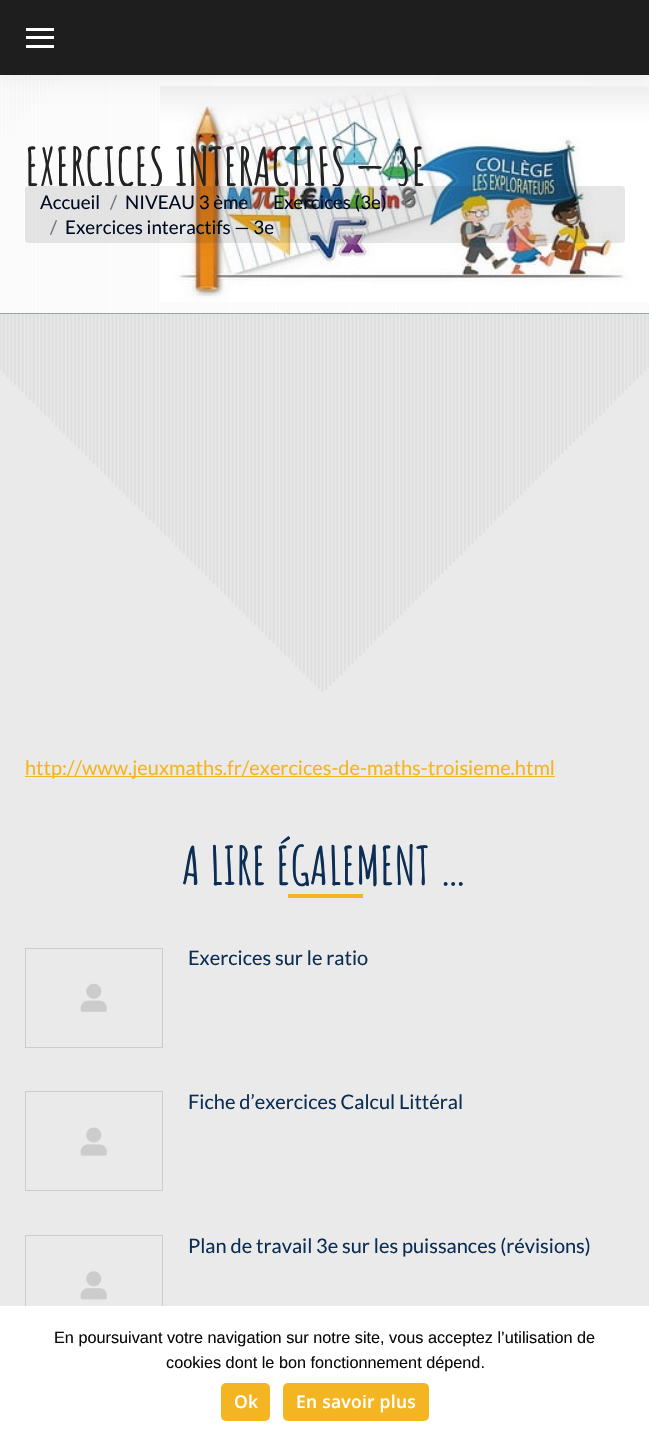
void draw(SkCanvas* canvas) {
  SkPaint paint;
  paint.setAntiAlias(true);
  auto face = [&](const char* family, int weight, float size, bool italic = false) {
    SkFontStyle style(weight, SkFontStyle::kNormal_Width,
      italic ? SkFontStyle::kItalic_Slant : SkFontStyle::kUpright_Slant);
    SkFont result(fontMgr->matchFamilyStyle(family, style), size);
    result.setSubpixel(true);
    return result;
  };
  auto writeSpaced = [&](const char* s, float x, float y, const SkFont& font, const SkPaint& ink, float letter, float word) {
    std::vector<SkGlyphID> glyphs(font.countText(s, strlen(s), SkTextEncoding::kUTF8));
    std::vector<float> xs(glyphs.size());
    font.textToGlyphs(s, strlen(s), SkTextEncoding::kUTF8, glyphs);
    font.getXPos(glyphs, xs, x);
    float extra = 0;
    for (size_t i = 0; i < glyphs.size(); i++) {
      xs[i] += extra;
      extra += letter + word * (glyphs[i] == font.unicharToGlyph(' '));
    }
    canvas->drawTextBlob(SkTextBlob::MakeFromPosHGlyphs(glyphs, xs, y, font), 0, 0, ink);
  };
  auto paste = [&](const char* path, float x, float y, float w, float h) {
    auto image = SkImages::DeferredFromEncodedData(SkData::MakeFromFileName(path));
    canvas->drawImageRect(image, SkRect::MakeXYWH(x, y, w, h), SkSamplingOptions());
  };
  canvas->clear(0xffeaeaea);
  paste("img/1.png", 0, 75, 649, 617);
  paint.setColor(0xd4ffffff);
  canvas->drawRect(SkRect::MakeXYWH(0, 75, 649, 238), paint);
  paste("img/2.png", 160, 86, 489, 216);
  paint.setColor(0x12000000);
  paint.setMaskFilter(SkMaskFilter::MakeBlur(kNormal_SkBlurStyle, 9.5f));
  canvas->drawRect(SkRect::MakeXYWH(-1, -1, 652, 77), paint);
  paint.setMaskFilter(nullptr);
  {
    const struct { float x, y, w, h; SkColor color; } items[] = {
      {0, 0, 649, 75, 0xff1e1e1e},
      {26, 36, 28, 3, 0xffffffff},
      {26, 28, 28, 3, 0xffffffff},
      {26, 45, 28, 3, 0xffffffff},
      {0, 313, 649, 1, 0xffdd9933},
    };
    for (auto [x, y, w, h, color] : items) {
      paint.setColor(color);
      canvas->drawRect(SkRect::MakeXYWH(x, y, w, h), paint);
    }
  }
  paint.setColor(0x1a0f1213);
  canvas->drawRoundRect(SkRect::MakeXYWH(25, 186, 600, 57), 4, 4, paint);
  paint.setColor(0xfff4b522);
  canvas->drawRect(SkRect::MakeXYWH(25, 776, 530, 1), paint);
  canvas->drawRect(SkRect::MakeXYWH(288, 894, 75, 4), paint);
  paint.setStroke(true);
  paint.setStrokeWidth(1);
  paint.setColor(0xffcccccc);
  canvas->drawRect(SkRect::MakeXYWH(25.5f, 948.5f, 137, 99), paint);
  paste("img/3.png", 80, 983, 27, 29);
  canvas->drawRect(SkRect::MakeXYWH(25.5f, 1091.5f, 137, 99), paint);
  paste("img/4.png", 80, 1127, 27, 29);
  canvas->drawRect(SkRect::MakeXYWH(25.5f, 1235.5f, 137, 99), paint);
  paste("img/5.png", 80, 1271, 27, 29);
  paint.setStroke(false);
  paint.setColor(0xffffffff);
  canvas->drawRect(SkRect::MakeXYWH(0, 1306, 649, 140), paint);
  paint.setColor(0xfff4b522);
  canvas->drawRoundRect(SkRect::MakeXYWH(221, 1383, 49, 38), 5, 5, paint);
  canvas->drawRoundRect(SkRect::MakeXYWH(283, 1383, 146, 38), 5, 5, paint);
  canvas->save();
  canvas->clipRect(SkRect::MakeXYWH(25, 146, 401, 40));
  auto f0 = face("Amatic SC", 700, 52.5f);
  paint.setColor(0xff232323);
  canvas->drawString("EXERCICES INTERACTIFS — 3E", 25, 186, f0, paint);
  canvas->restore();
  auto f1 = face("Lato", 400, 18.75f);
  paint.setColor(0xff000b21);
  canvas->drawString("Accueil", 40, 209, f1, paint);
  paint.setColor(0xff717782);
  canvas->drawString("/", 110, 209, f1, paint);
  paint.setColor(0xff000b21);
  canvas->drawString("NIVEAU 3 ème", 125, 209, f1, paint);
  paint.setColor(0xff6d696f);
  canvas->drawString("/", 258, 209, f1, paint);
  paint.setColor(0xff000b21);
  canvas->drawString("Exercices (3e)", 273, 209, f1, paint);
  paint.setColor(0xff717782);
  canvas->drawString("/", 50, 234, f1, paint);
  paint.setColor(0xff000b21);
  canvas->drawString("Exercices interactifs — 3e", 65, 234, f1, paint);
  auto f2 = face("Lato", 400, 20);
  paint.setColor(0xfff4b522);
  canvas->drawString("http://www.jeuxmaths.fr/exercices-de-maths-troisieme.html", 25, 775, f2, paint);
  paint.setColor(0xff0c2e54);
  canvas->drawString("A LIRE ÉGALEMENT …", 182, 885, f0, paint);
  {
    const struct { const char* s; float x, y; } items[] = {
      {"Exercices sur le ratio", 188, 965},
      {"Fiche d’exercices Calcul Littéral", 188, 1109},
      {"Plan de travail 3e sur les puissances (révisions)", 188, 1253},
    };
    for (auto [s, x, y] : items) {
      canvas->drawString(s, x, y, f2, paint);
    }
  }
  auto f3 = face("Liberation Sans", 400, 16.25f);
  paint.setColor(0xff0a0a0a);
  canvas->drawString("En poursuivant votre navigation sur notre site, vous acceptez l’utilisation de", 54, 1343, f3, paint);
  canvas->drawString("cookies dont le bon fonctionnement dépend.", 166, 1368, f3, paint);
  auto f4 = face("Open Sans", 600, 17.5f);
  paint.setColor(0xffffffff);
  writeSpaced("Ok", 234, 1408, f4, paint, 0.25f, 0);
  writeSpaced("En savoir plus", 296, 1408, f4, paint, 0.25f, 0);
}
